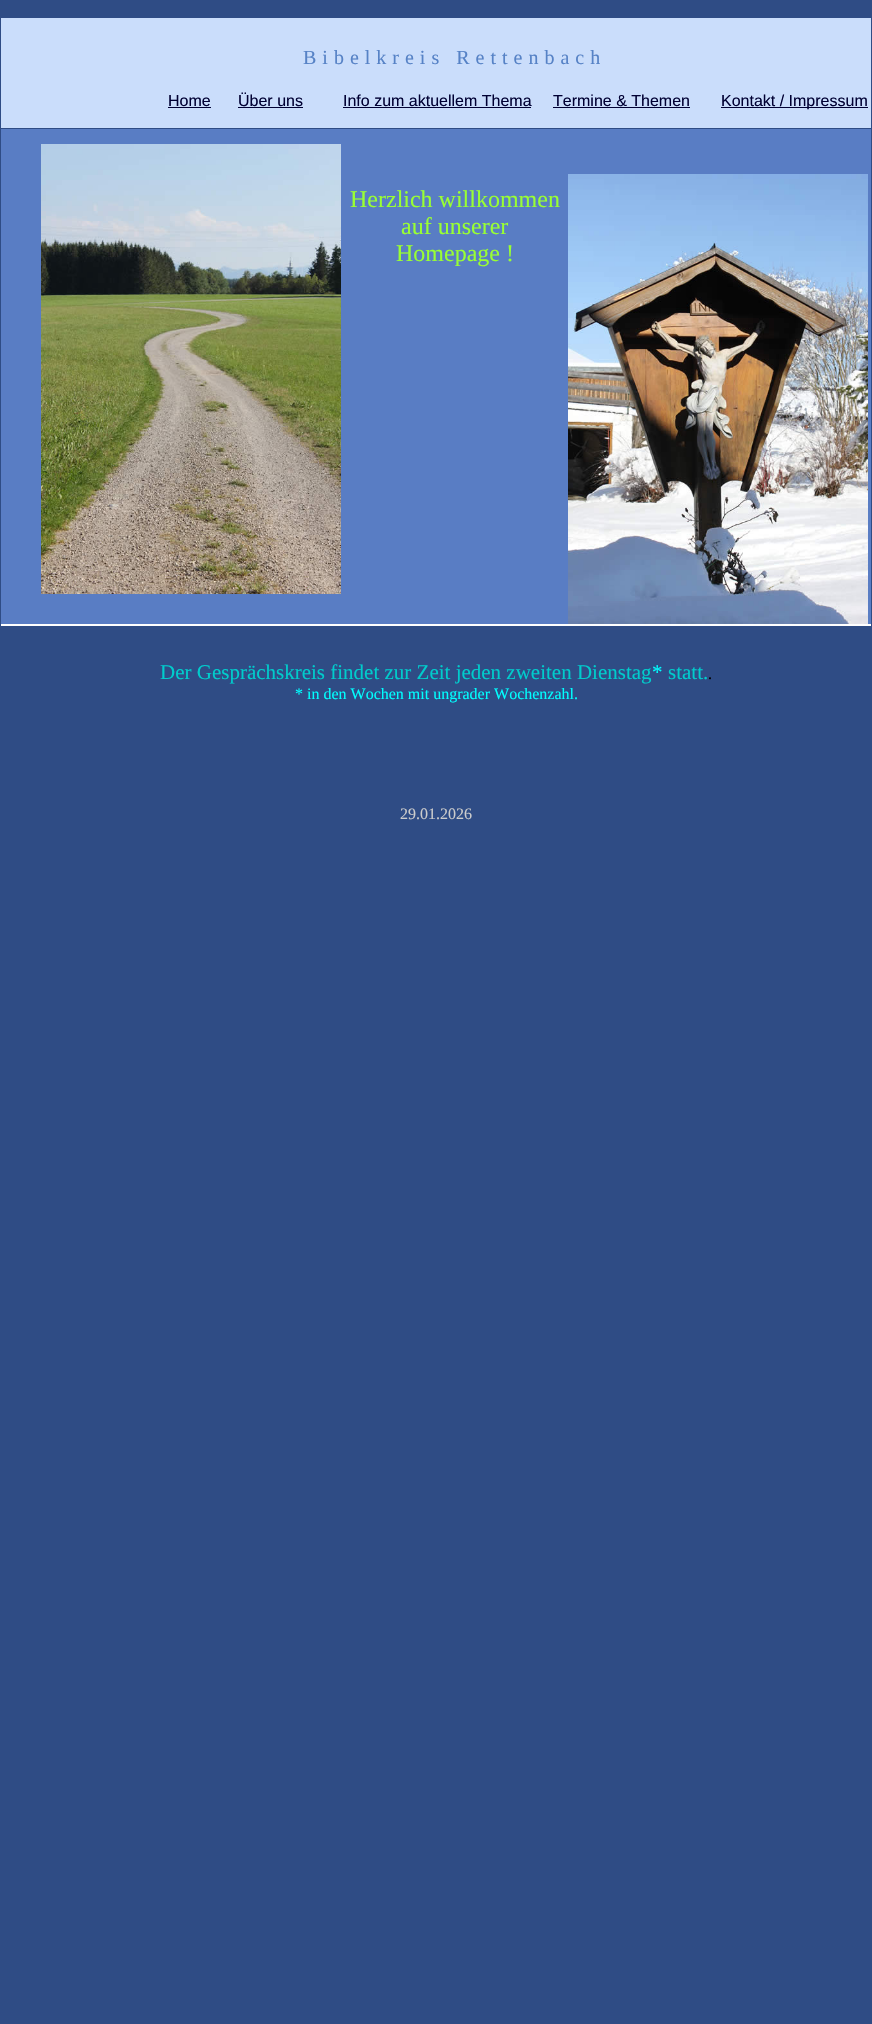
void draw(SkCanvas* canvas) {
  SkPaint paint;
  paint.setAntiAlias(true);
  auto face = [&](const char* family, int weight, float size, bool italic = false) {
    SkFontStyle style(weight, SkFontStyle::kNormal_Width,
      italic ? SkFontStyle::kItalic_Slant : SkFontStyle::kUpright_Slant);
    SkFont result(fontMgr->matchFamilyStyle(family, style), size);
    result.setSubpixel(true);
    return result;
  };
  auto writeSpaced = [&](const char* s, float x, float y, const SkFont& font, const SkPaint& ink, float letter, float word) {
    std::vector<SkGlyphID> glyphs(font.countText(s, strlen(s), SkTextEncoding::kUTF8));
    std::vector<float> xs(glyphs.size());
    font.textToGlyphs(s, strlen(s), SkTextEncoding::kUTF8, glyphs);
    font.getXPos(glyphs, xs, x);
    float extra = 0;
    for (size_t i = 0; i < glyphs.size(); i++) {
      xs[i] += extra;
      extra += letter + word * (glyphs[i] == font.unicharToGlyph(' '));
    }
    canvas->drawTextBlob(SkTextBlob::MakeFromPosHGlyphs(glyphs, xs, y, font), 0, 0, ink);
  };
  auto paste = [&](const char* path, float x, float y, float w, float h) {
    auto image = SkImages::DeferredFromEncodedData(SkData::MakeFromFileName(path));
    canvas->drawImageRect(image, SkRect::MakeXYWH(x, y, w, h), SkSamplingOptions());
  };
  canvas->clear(0xff2f4c85);
  {
    const struct { float x, y, w, h; SkColor color; } items[] = {
      {1, 18, 870, 110, 0xffcaddfb},
      {168, 107, 43, 1, 0xff000033},
      {238, 107, 65, 1, 0xff000033},
      {343, 107, 188, 1, 0xff000033},
      {553, 107, 137, 1, 0xff000033},
      {721, 107, 147, 1, 0xff000033},
      {1, 129, 870, 495, 0xff597dc4},
    };
    for (auto [x, y, w, h, color] : items) {
      paint.setColor(color);
      canvas->drawRect(SkRect::MakeXYWH(x, y, w, h), paint);
    }
  }
  paste("img/1.png", 41, 144, 300, 450);
  paste("img/2.png", 568, 174, 300, 450);
  paint.setColor(0xffffffff);
  canvas->drawRect(SkRect::MakeXYWH(1, 624, 870, 2), paint);
  auto f0 = face("Liberation Serif", 400, 20);
  paint.setColor(0xff5682c6);
  writeSpaced("Bibelkreis Rettenbach", 303, 64, f0, paint, 6, 0);
  auto f1 = face("Liberation Sans", 400, 16);
  paint.setColor(0xff000033);
  {
    const struct { const char* s; float x, y; } items[] = {
      {"Home", 168, 106},
      {"Über uns", 238, 106},
      {"Info zum aktuellem Thema", 343, 106},
      {"Termine & Themen", 553, 106},
      {"Kontakt / Impressum", 721, 106},
    };
    for (auto [s, x, y] : items) {
      canvas->drawString(s, x, y, f1, paint);
    }
  }
  auto f2 = face("Liberation Serif", 400, 24);
  paint.setColor(0xff99ff33);
  {
    const struct { const char* s; float x, y; } items[] = {
      {"Herzlich willkommen", 350, 207},
      {"auf unserer", 401, 234},
      {"Homepage !", 396, 261},
    };
    for (auto [s, x, y] : items) {
      canvas->drawString(s, x, y, f2, paint);
    }
  }
  auto f3 = face("Liberation Serif", 400, 21);
  paint.setColor(0xff00cccc);
  canvas->drawString("Der Gesprächskreis findet zur Zeit jeden zweiten Dienstag", 160, 679, f3, paint);
  paint.setColor(0xff00ffff);
  canvas->drawString("*", 652, 679, f3, paint);
  paint.setColor(0xff00cccc);
  canvas->drawString("statt.", 668, 679, f3, paint);
  auto f4 = face("Liberation Serif", 400, 16);
  paint.setColor(0xff000000);
  canvas->drawString(".", 708, 679, f4, paint);
  paint.setColor(0xff00ffff);
  canvas->drawString("* in den Wochen mit ungrader Wochenzahl.", 295, 699, f4, paint);
  paint.setColor(0xffcccccc);
  canvas->drawString("29.01.2026", 400, 819, f4, paint);
}
